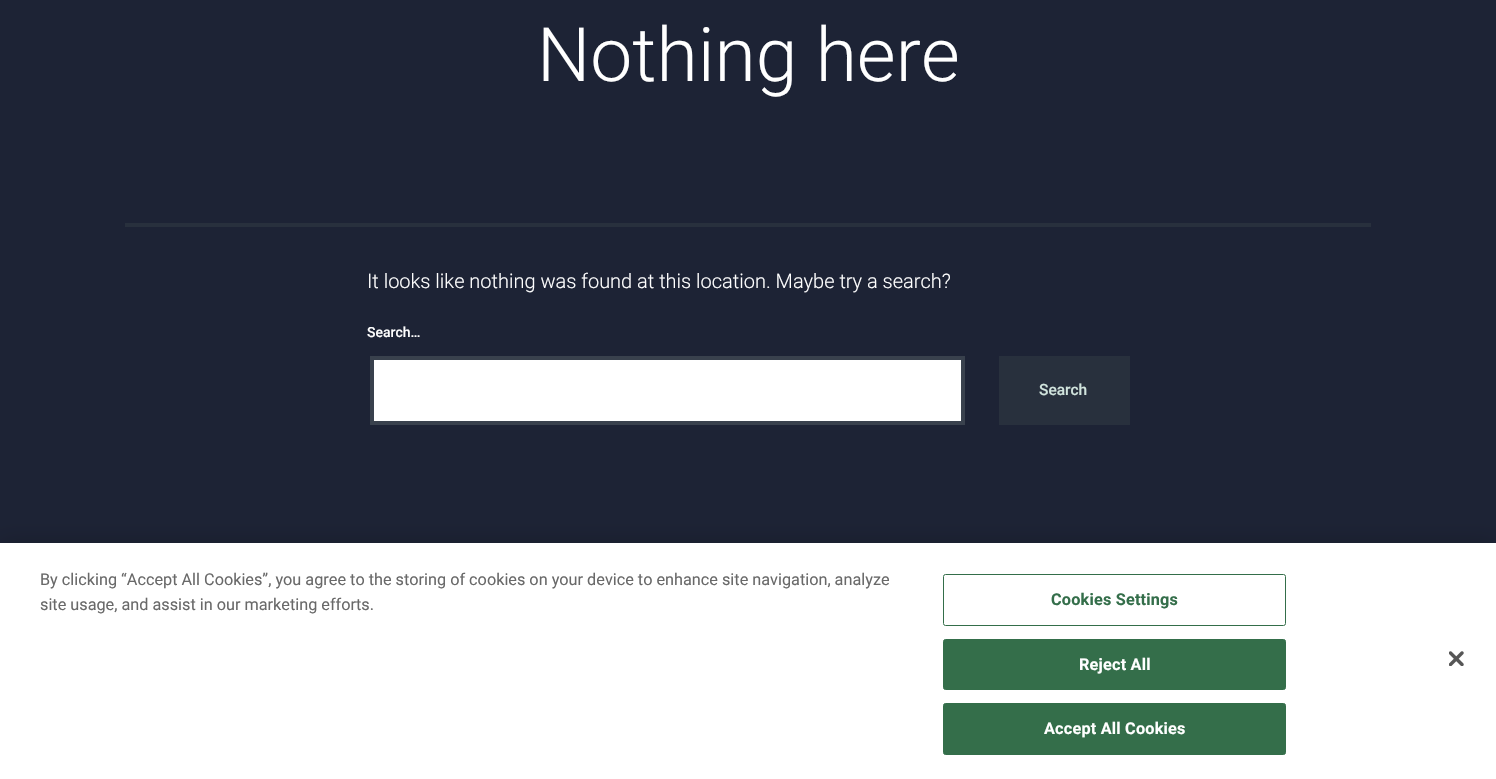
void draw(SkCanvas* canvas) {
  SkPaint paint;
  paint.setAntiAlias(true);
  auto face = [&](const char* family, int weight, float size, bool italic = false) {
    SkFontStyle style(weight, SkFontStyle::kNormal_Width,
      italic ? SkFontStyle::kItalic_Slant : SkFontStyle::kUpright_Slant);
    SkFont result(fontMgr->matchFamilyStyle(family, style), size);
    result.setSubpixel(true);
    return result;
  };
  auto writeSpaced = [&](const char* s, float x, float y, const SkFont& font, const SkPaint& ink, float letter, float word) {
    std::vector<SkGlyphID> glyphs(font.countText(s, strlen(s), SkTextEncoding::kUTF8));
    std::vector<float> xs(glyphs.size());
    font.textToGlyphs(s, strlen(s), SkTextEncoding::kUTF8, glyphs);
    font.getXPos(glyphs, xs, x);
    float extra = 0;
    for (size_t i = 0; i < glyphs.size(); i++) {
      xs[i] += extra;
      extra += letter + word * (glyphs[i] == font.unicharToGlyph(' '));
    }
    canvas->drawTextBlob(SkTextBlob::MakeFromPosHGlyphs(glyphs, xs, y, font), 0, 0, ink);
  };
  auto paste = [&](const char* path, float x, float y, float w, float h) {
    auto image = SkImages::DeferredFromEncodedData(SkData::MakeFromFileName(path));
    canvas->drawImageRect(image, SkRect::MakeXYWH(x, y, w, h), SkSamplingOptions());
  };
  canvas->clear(0xff1d2335);
  paint.setColor(0xff28303d);
  canvas->drawRect(SkRect::MakeXYWH(125, 223, 1246, 4), paint);
  paint.setColor(0xffffffff);
  canvas->drawRect(SkRect::MakeXYWH(372, 358, 591, 65), paint);
  paint.setStroke(true);
  paint.setStrokeWidth(4);
  paint.setColor(0xff39414d);
  canvas->drawRect(SkRect::MakeXYWH(372, 358, 591, 65), paint);
  paint.setStroke(false);
  paint.setColor(0xff28303d);
  canvas->drawRect(SkRect::MakeXYWH(999, 356, 131, 69), paint);
  paint.setColor(0x33000000);
  paint.setMaskFilter(SkMaskFilter::MakeBlur(kNormal_SkBlurStyle, 11));
  canvas->drawRect(SkRect::MakeXYWH(0, 543, 1496, 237), paint);
  paint.setMaskFilter(nullptr);
  paint.setColor(0xffffffff);
  canvas->drawRect(SkRect::MakeXYWH(0, 543, 1496, 236), paint);
  paint.setStroke(true);
  paint.setStrokeWidth(1);
  paint.setColor(0xff346e4a);
  canvas->drawRoundRect(SkRect::MakeXYWH(943.5f, 574.5f, 342, 51), 2, 2, paint);
  paint.setStroke(false);
  canvas->drawRoundRect(SkRect::MakeXYWH(943.5f, 639.5f, 342, 50), 2, 2, paint);
  paint.setStroke(true);
  canvas->drawRoundRect(SkRect::MakeXYWH(943.5f, 639.5f, 342, 50), 2, 2, paint);
  paint.setStroke(false);
  canvas->drawRoundRect(SkRect::MakeXYWH(943.5f, 703.5f, 342, 51), 2, 2, paint);
  paint.setStroke(true);
  canvas->drawRoundRect(SkRect::MakeXYWH(943.5f, 703.5f, 342, 51), 2, 2, paint);
  paste("img/1.png", 1449, 651, 15, 15);
  auto f0 = face("Roboto", 300, 75);
  paint.setStroke(false);
  paint.setColor(0xffffffff);
  canvas->drawString("Nothing here", 537, 81, f0, paint);
  auto f1 = face("Roboto", 300, 20);
  canvas->drawString("It looks like nothing was found at this location. Maybe try a search?", 367, 288, f1, paint);
  auto f2 = face("Roboto", 500, 14);
  canvas->drawString("Search…", 367, 337, f2, paint);
  auto f3 = face("Roboto", 500, 15.5f);
  paint.setColor(0xffd1e4dd);
  canvas->drawString("Search", 1039, 395, f3, paint);
  auto f4 = face("Roboto", 400, 16.25f);
  paint.setColor(0xff696969);
  canvas->drawString("By clicking “Accept All Cookies”, you agree to the storing of cookies on your device to enhance site navigation, analyze", 40, 585, f4, paint);
  canvas->drawString("site usage, and assist in our marketing efforts.", 40, 610, f4, paint);
  auto f5 = face("Roboto", 700, 16.25f);
  paint.setColor(0xff346e4a);
  writeSpaced("Cookies Settings", 1051, 605, f5, paint, 0.2f, 0);
  paint.setColor(0xffffffff);
  writeSpaced("Reject All", 1079, 670, f5, paint, 0.2f, 0);
  writeSpaced("Accept All Cookies", 1044, 734, f5, paint, 0.2f, 0);
}
